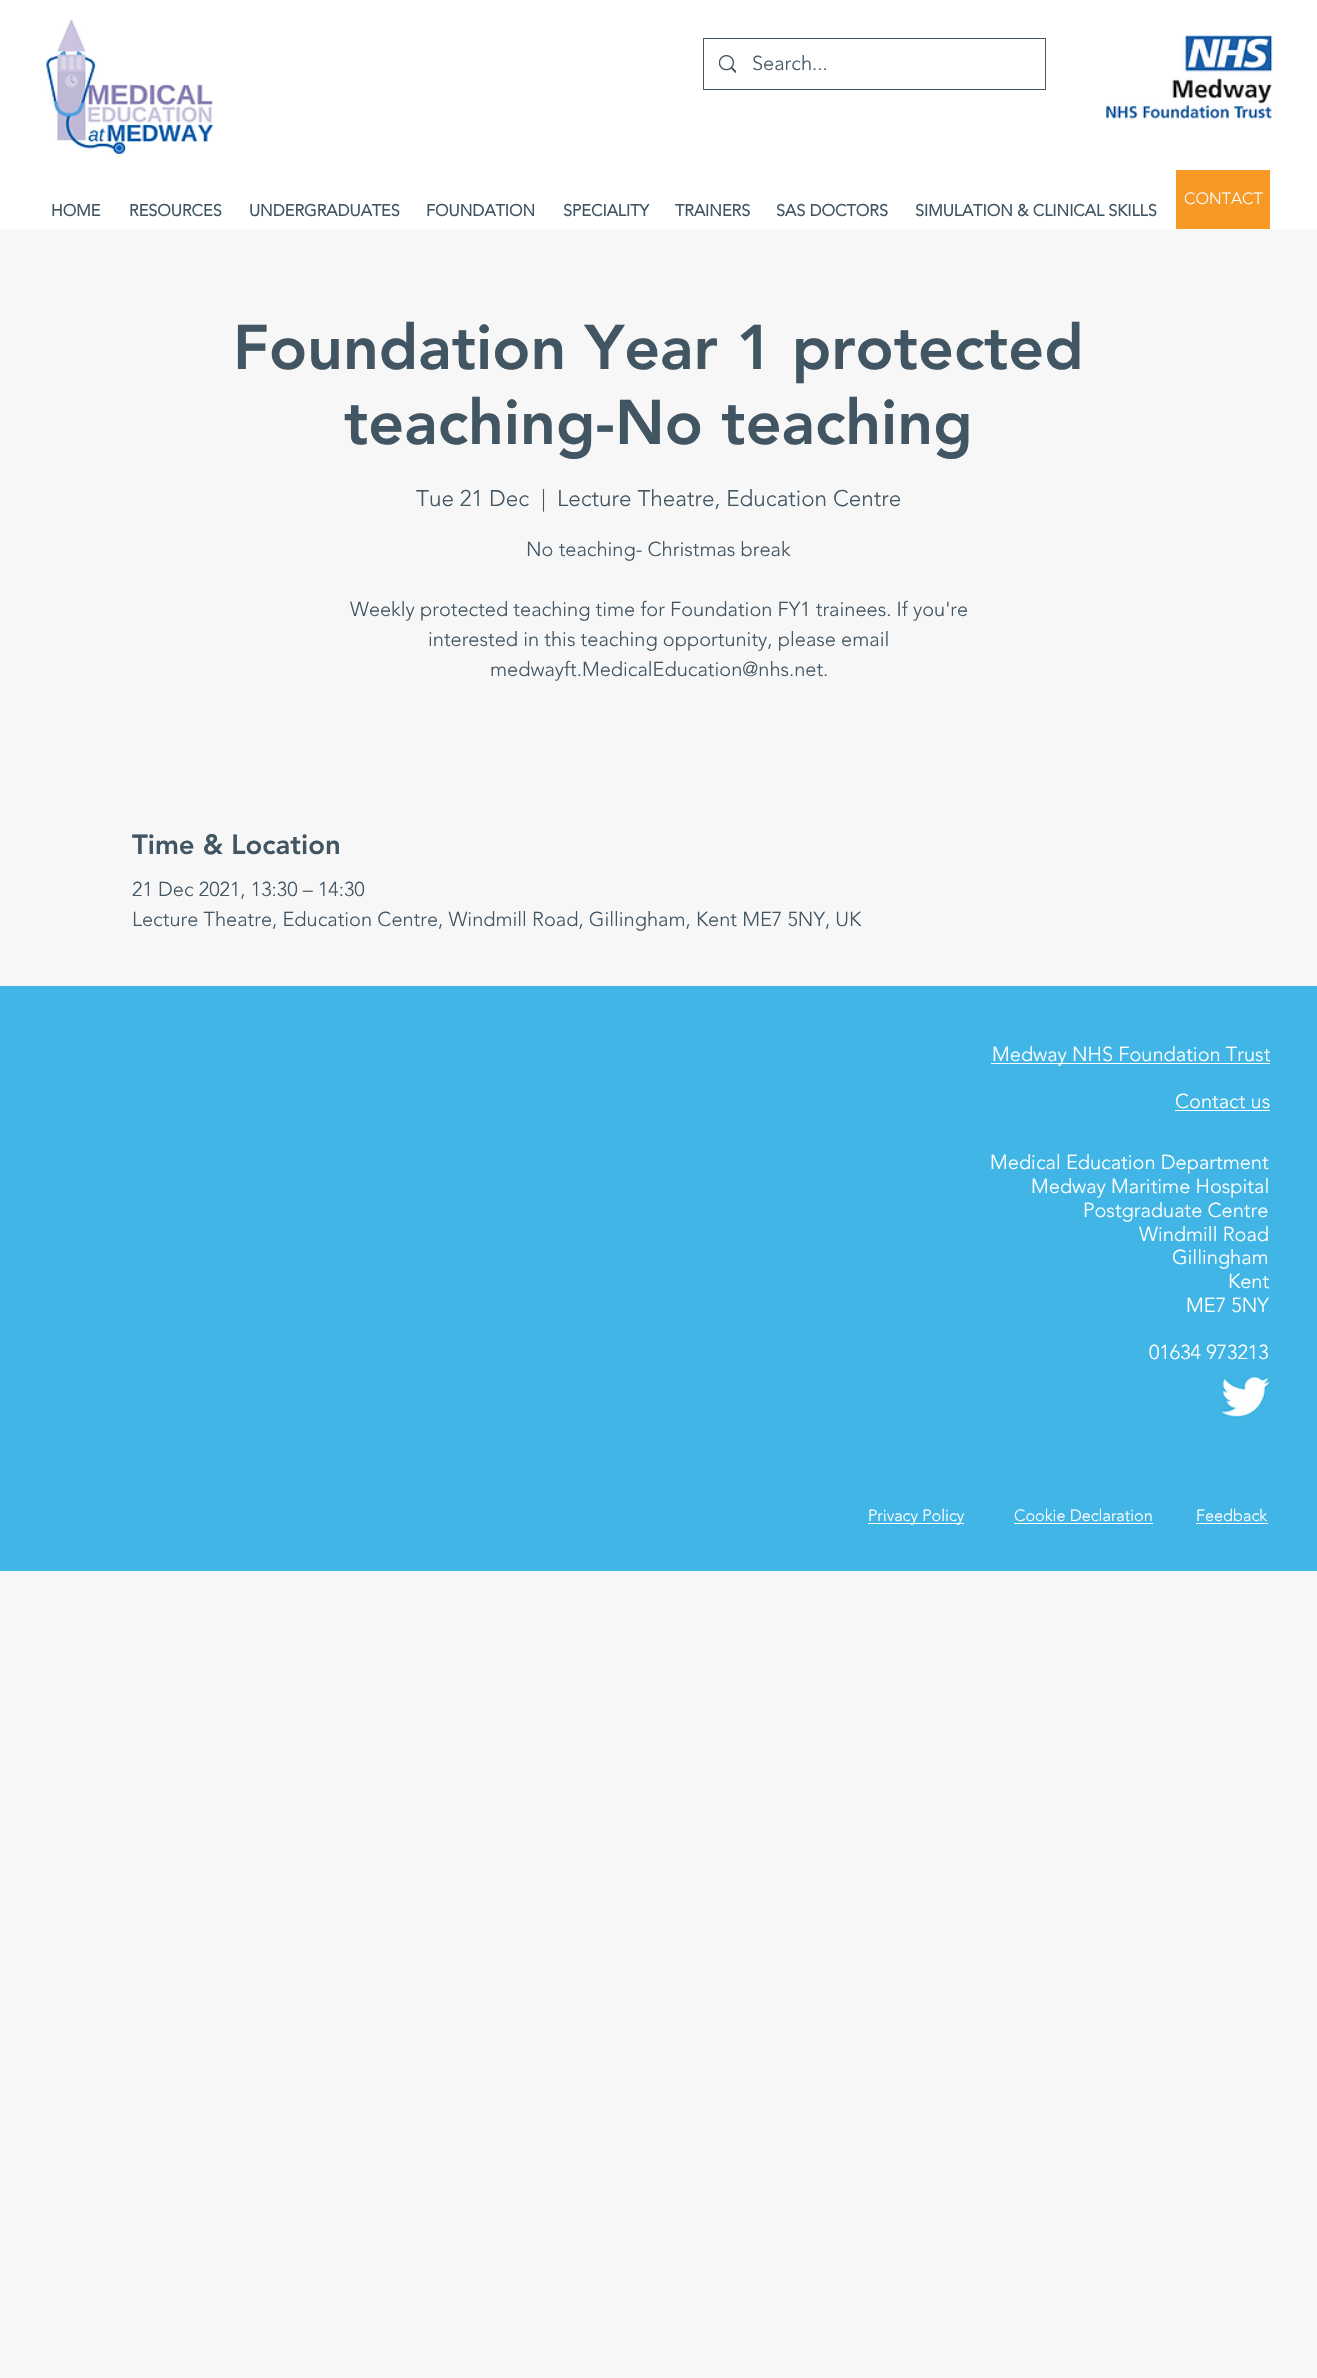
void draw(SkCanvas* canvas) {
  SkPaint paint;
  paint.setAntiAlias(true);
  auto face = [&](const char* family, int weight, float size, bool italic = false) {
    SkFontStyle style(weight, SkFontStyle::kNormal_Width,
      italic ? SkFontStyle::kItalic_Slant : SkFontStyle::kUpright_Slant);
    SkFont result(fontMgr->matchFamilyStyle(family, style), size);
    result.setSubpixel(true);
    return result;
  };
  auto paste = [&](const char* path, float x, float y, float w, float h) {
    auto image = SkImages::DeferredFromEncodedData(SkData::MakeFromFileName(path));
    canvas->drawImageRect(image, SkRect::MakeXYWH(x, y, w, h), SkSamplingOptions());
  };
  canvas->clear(0xfff7f7f7);
  paint.setColor(0xffffffff);
  canvas->drawRect(SkRect::MakeXYWH(0, 0, 1317, 229), paint);
  paste("img/1.png", 46, 19, 168, 136);
  paint.setStroke(true);
  paint.setStrokeWidth(1);
  paint.setColor(0xff425563);
  canvas->drawRect(SkRect::MakeXYWH(703.5f, 38.5f, 342, 51), paint);
  paste("img/2.png", 719, 55, 17, 18);
  paste("img/3.png", 1106, 35, 167, 84);
  paint.setStroke(false);
  {
    const struct { float x, y, w, h; SkColor color; } items[] = {
      {1176, 170, 94, 59, 0xfff89825},
      {0, 986, 1317, 585, 0xff41b6e6},
      {991, 1063, 279, 1, 0xffffffff},
      {1175, 1110, 95, 1, 0xffffffff},
    };
    for (auto [x, y, w, h, color] : items) {
      paint.setColor(color);
      canvas->drawRect(SkRect::MakeXYWH(x, y, w, h), paint);
    }
  }
  paste("img/4.png", 1221, 1375, 49, 43);
  {
    const struct { float x, y, w, h; SkColor color; } items[] = {
      {868, 1523, 96, 1, 0xffffffff},
      {1014, 1523, 139, 1, 0xffffffff},
      {1196, 1523, 72, 1, 0xffffffff},
    };
    for (auto [x, y, w, h, color] : items) {
      paint.setColor(color);
      canvas->drawRect(SkRect::MakeXYWH(x, y, w, h), paint);
    }
  }
  auto f0 = face("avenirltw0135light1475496", 300, 20);
  paint.setColor(0xff425563);
  canvas->drawString("Search...", 752, 70, f0, paint);
  auto f1 = face("avenirltw0135light1475496", 300, 16.25f);
  paint.setColor(0xfff7f7f7);
  canvas->drawString("CONTACT", 1184, 204, f1, paint);
  auto f2 = face("avenirltw0135light1475496", 700, 16.25f);
  paint.setColor(0xff425563);
  {
    const struct { const char* s; float x, y; } items[] = {
      {"HOME", 51, 216},
      {"RESOURCES", 129, 216},
      {"UNDERGRADUATES", 249, 216},
      {"FOUNDATION", 426, 216},
      {"SPECIALITY", 563, 216},
      {"TRAINERS", 675, 216},
      {"SAS DOCTORS", 776, 216},
      {"SIMULATION & CLINICAL SKILLS", 915, 216},
    };
    for (auto [s, x, y] : items) {
      canvas->drawString(s, x, y, f2, paint);
    }
  }
  auto f3 = face("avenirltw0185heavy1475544", 900, 62.5f);
  canvas->drawString("Foundation Year 1 protected", 233, 369, f3, paint);
  canvas->drawString("teaching-No teaching", 344, 444, f3, paint);
  auto f4 = face("avenirltw0135light1475496", 300, 22.5f);
  {
    const struct { const char* s; float x, y; } items[] = {
      {"Tue 21 Dec", 416, 506},
      {"|", 541, 506},
      {"Lecture Theatre, Education Centre", 557, 506},
    };
    for (auto [s, x, y] : items) {
      canvas->drawString(s, x, y, f4, paint);
    }
  }
  {
    const struct { const char* s; float x, y; } items[] = {
      {"No teaching- Christmas break", 526, 556},
      {"Weekly protected teaching time for Foundation FY1 trainees. If you're", 350, 616},
      {"interested in this teaching opportunity, please email", 428, 646},
      {"medwayft.MedicalEducation@nhs.net.", 490, 676},
    };
    for (auto [s, x, y] : items) {
      canvas->drawString(s, x, y, f0, paint);
    }
  }
  auto f5 = face("avenirltw0185heavy1475544", 900, 27.5f);
  canvas->drawString("Time & Location", 132, 854, f5, paint);
  canvas->drawString("21 Dec 2021, 13:30 – 14:30", 132, 896, f0, paint);
  canvas->drawString("Lecture Theatre, Education Centre, Windmill Road, Gillingham, Kent ME7 5NY, UK", 132, 926, f0, paint);
  paint.setColor(0xffffffff);
  {
    const struct { const char* s; float x, y; } items[] = {
      {"Medway NHS Foundation Trust", 992, 1061},
      {"Contact us", 1175, 1108},
      {"Medical Education Department", 990, 1169},
      {"Medway Maritime Hospital", 1031, 1193},
      {"Postgraduate Centre", 1083, 1217},
      {"Windmill Road", 1139, 1241},
      {"Gillingham", 1172, 1264},
      {"Kent", 1228, 1288},
      {"ME7 5NY", 1186, 1312},
      {"01634 973213", 1149, 1359},
    };
    for (auto [s, x, y] : items) {
      canvas->drawString(s, x, y, f0, paint);
    }
  }
  {
    const struct { const char* s; float x, y; } items[] = {
      {"Privacy Policy", 868, 1521},
      {"Cookie Declaration", 1014, 1521},
      {"Feedback", 1196, 1521},
    };
    for (auto [s, x, y] : items) {
      canvas->drawString(s, x, y, f1, paint);
    }
  }
}
